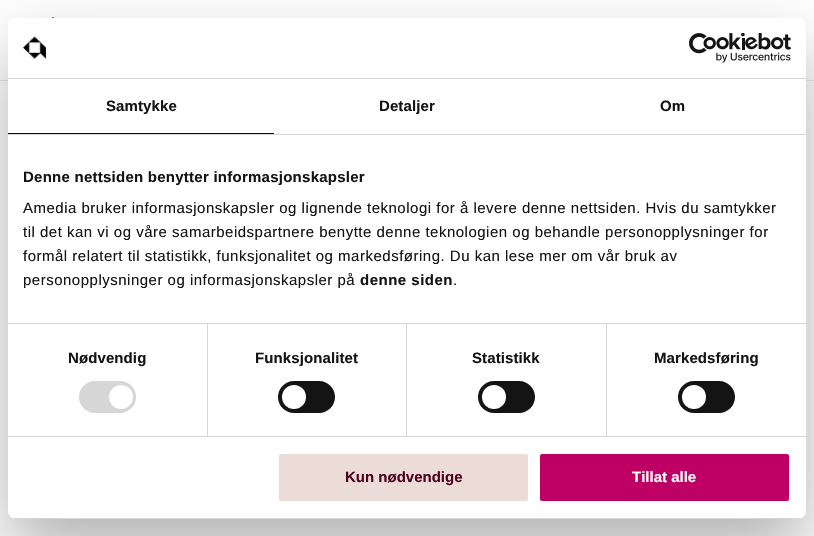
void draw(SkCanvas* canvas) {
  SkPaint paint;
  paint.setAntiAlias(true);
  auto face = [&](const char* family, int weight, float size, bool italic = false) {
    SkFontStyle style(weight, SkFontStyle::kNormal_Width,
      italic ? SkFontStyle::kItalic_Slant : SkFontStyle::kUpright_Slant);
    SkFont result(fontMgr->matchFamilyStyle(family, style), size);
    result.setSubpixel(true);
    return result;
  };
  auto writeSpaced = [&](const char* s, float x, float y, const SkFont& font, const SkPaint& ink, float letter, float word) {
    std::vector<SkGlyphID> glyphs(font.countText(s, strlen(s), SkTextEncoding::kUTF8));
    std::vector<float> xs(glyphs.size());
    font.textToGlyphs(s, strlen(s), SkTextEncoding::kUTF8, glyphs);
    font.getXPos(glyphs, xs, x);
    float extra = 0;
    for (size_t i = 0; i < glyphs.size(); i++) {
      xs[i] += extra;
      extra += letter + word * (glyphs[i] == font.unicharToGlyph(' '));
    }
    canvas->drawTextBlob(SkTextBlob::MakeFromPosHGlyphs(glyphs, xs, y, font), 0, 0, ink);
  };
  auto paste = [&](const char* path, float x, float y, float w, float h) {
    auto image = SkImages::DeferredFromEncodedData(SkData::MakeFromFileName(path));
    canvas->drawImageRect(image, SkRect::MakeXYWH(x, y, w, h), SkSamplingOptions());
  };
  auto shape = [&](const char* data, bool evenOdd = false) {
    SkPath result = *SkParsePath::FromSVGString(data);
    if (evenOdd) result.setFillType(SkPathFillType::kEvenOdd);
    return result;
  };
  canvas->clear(0xffffffff);
  paint.setColor(0xffe8e8e8);
  canvas->drawRect(SkRect::MakeXYWH(0, 80, 814, 1), paint);
  paste("img/1.png", 52, 17, 2, 1);
  paint.setColor(0x4d000000);
  paint.setMaskFilter(SkMaskFilter::MakeBlur(kNormal_SkBlurStyle, 34));
  canvas->drawRoundRect(SkRect::MakeXYWH(8, 50, 798, 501), 8, 8, paint);
  paint.setMaskFilter(nullptr);
  paint.setColor(0xffffffff);
  canvas->drawRoundRect(SkRect::MakeXYWH(8, 18, 798, 501), 8, 8, paint);
  paint.setColor(0xffd6d6d6);
  canvas->drawRect(SkRect::MakeXYWH(8, 78, 798, 1), paint);
  paste("img/2.png", 23, 36, 23, 23);
  paste("img/3.png", 689, 33, 102, 30);
  {
    const struct { float x, y, w, h; SkColor color; } items[] = {
      {8, 134, 798, 1, 0xffd6d6d6},
      {8, 133, 266, 1, 0xff111111},
      {8, 323, 798, 1, 0xffd6d6d6},
      {8, 436, 798, 1, 0xffd6d6d6},
      {207, 324, 1, 112, 0xffd6d6d6},
    };
    for (auto [x, y, w, h, color] : items) {
      paint.setColor(color);
      canvas->drawRect(SkRect::MakeXYWH(x, y, w, h), paint);
    }
  }
  canvas->drawRoundRect(SkRect::MakeXYWH(79, 381, 57, 32), 16, 16, paint);
  paint.setColor(0xffffffff);
  canvas->drawCircle(121, 397, 12, paint);
  paint.setColor(0xffd6d6d6);
  canvas->drawRect(SkRect::MakeXYWH(406, 324, 1, 112), paint);
  paint.setColor(0xff141414);
  canvas->drawRoundRect(SkRect::MakeXYWH(278, 381, 57, 32), 16, 16, paint);
  paint.setColor(0xffffffff);
  canvas->drawCircle(294, 397, 12, paint);
  paint.setColor(0xffd6d6d6);
  canvas->drawRect(SkRect::MakeXYWH(606, 324, 1, 112), paint);
  paint.setColor(0xff141414);
  canvas->drawRoundRect(SkRect::MakeXYWH(478, 381, 57, 32), 16, 16, paint);
  paint.setColor(0xffffffff);
  canvas->drawCircle(494, 397, 12, paint);
  paint.setColor(0xff141414);
  canvas->drawRoundRect(SkRect::MakeXYWH(678, 381, 57, 32), 16, 16, paint);
  paint.setColor(0xffffffff);
  canvas->drawCircle(694, 397, 12, paint);
  canvas->save();
  canvas->clipPath(shape("M16 18H798C802.5 18 806 21.5 806 26V511C806 515.5 802.5 519 798 519H16C11.5 519 8 515.5 8 511V26C8 21.5 11.5 18 16 18Z"), true);
  paint.setColor(0xffd6d6d6);
  canvas->drawRect(SkRect::MakeXYWH(8, 518, 798, 1), paint);
  canvas->restore();
  paint.setColor(0xffebdcd7);
  canvas->drawRoundRect(SkRect::MakeXYWH(278, 453, 251, 49), 3, 3, paint);
  paint.setStroke(true);
  paint.setStrokeWidth(2);
  paint.setColor(0xffffffff);
  canvas->drawRoundRect(SkRect::MakeXYWH(278, 453, 251, 49), 3, 3, paint);
  paint.setStroke(false);
  paint.setColor(0xffbe0064);
  canvas->drawRoundRect(SkRect::MakeXYWH(539, 453, 251, 49), 3, 3, paint);
  paint.setStroke(true);
  paint.setColor(0xffffffff);
  canvas->drawRoundRect(SkRect::MakeXYWH(539, 453, 251, 49), 3, 3, paint);
  auto f0 = face("Liberation Sans", 700, 15);
  paint.setStroke(false);
  paint.setColor(0xff141414);
  {
    const struct { const char* s; float x, y; } items[] = {
      {"Samtykke", 106, 111},
      {"Detaljer", 379, 111},
      {"Om", 660, 111},
    };
    for (auto [s, x, y] : items) {
      writeSpaced(s, x, y, f0, paint, 0.1f, 0);
    }
  }
  writeSpaced("Denne nettsiden benytter informasjonskapsler", 23, 182, f0, paint, 0.25f, 0);
  auto f1 = face("Liberation Sans", 400, 15);
  {
    const struct { const char* s; float x, y; } items[] = {
      {"Amedia bruker informasjonskapsler og lignende teknologi for å levere denne nettsiden. Hvis du samtykker", 23, 213},
      {"til det kan vi og våre samarbeidspartnere benytte denne teknologien og behandle personopplysninger for", 23, 237},
      {"formål relatert til statistikk, funksjonalitet og markedsføring. Du kan lese mer om vår bruk av", 23, 261},
      {"personopplysninger og informasjonskapsler på", 23, 285},
    };
    for (auto [s, x, y] : items) {
      writeSpaced(s, x, y, f1, paint, 0.5f, 0);
    }
  }
  writeSpaced("denne siden", 360, 285, f0, paint, 0.5f, 0);
  writeSpaced(".", 453, 285, f1, paint, 0.5f, 0);
  {
    const struct { const char* s; float x, y; } items[] = {
      {"Nødvendig", 68, 363},
      {"Funksjonalitet", 255, 363},
      {"Statistikk", 472, 363},
      {"Markedsføring", 654, 363},
    };
    for (auto [s, x, y] : items) {
      writeSpaced(s, x, y, f0, paint, 0.1f, 0);
    }
  }
  paint.setColor(0xff500020);
  canvas->drawString("Kun nødvendige", 345, 482, f0, paint);
  paint.setColor(0xffffffff);
  canvas->drawString("Tillat alle", 632, 482, f0, paint);
}
